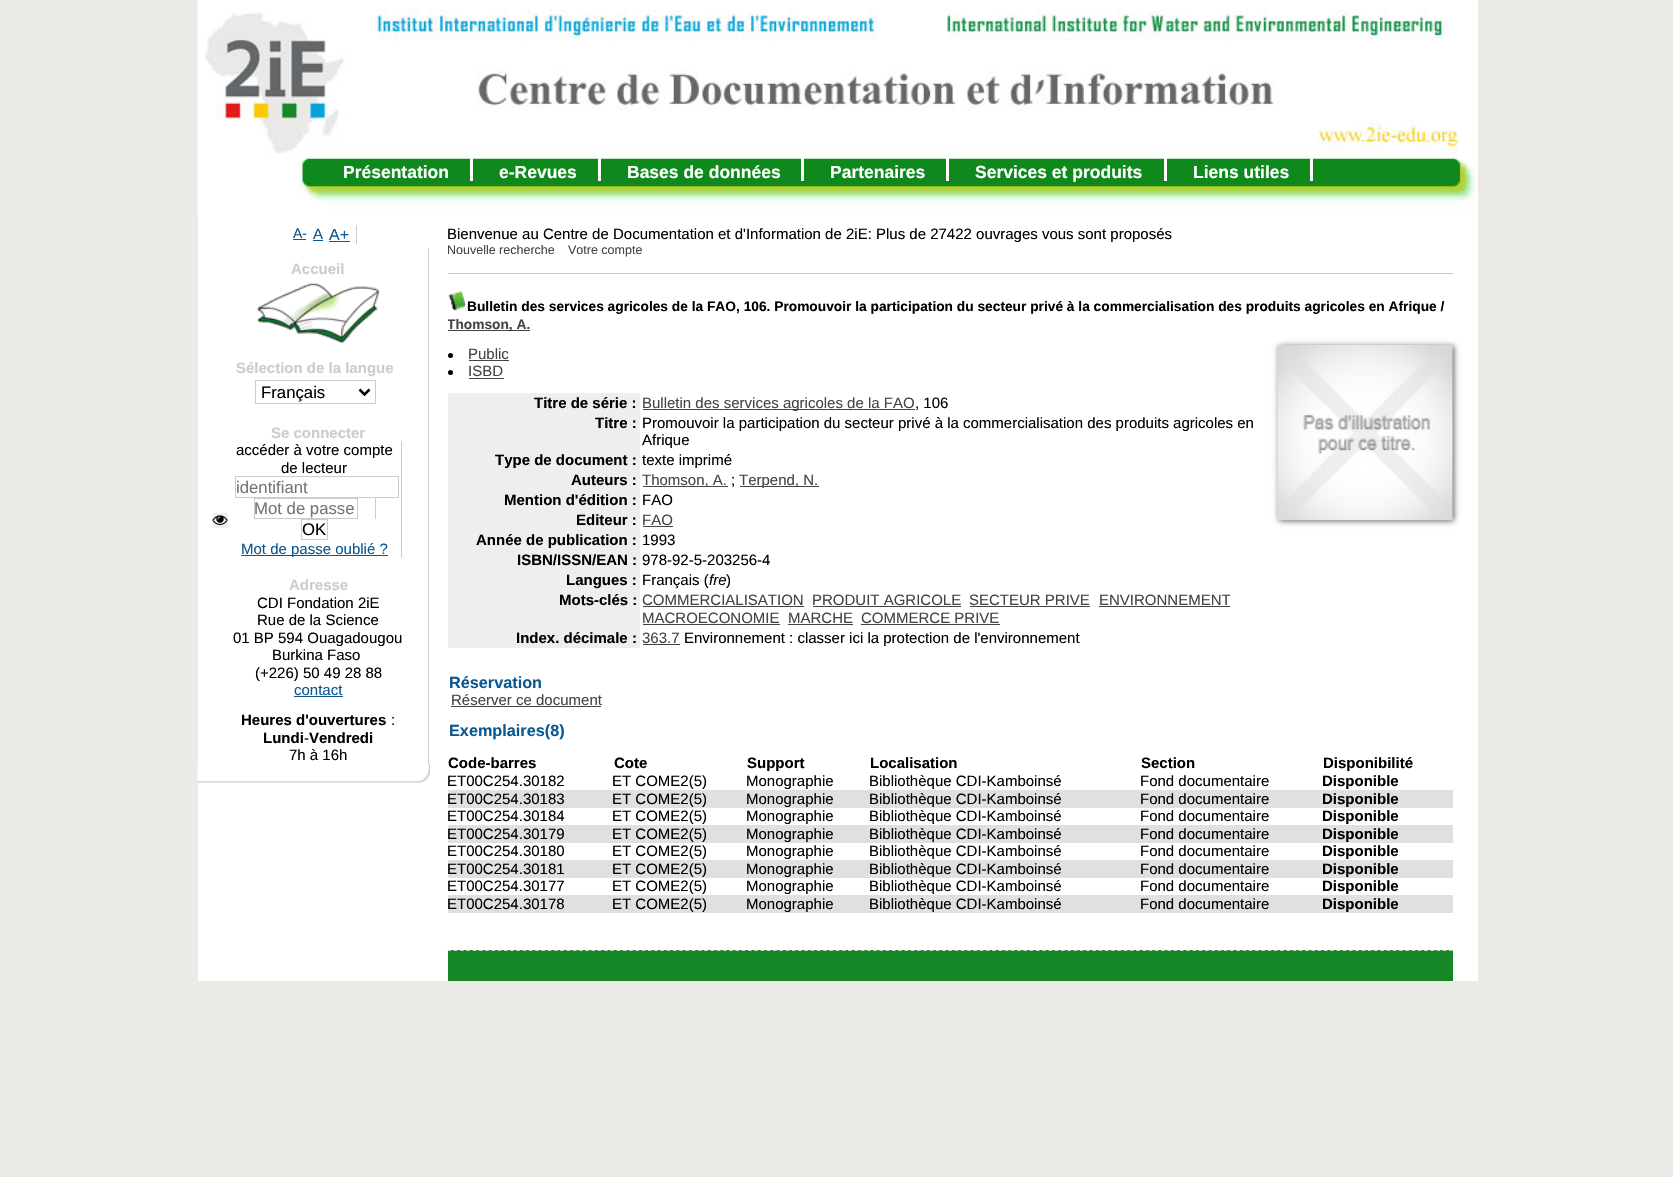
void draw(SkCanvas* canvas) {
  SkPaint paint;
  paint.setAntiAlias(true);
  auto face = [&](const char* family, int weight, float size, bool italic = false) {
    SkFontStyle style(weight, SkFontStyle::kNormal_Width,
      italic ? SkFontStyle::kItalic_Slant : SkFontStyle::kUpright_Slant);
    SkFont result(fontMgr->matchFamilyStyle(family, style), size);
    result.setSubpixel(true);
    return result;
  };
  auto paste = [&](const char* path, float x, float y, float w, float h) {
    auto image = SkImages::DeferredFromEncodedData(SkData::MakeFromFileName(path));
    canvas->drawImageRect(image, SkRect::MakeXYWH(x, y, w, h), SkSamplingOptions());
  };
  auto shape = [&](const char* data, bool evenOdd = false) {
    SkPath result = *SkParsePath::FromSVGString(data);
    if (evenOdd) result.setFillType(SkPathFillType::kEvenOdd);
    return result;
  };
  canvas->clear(0xffebeae6);
  paint.setColor(0xffffffff);
  canvas->drawRect(SkRect::MakeXYWH(198, 0, 1280, 981), paint);
  paste("img/1.png", 197, 763, 233, 20);
  {
    const struct { float x, y, w, h; SkColor color; } items[] = {
      {356, 225, 1, 19, 0xffcccccc},
      {293, 239, 13, 1, 0xff0b5791},
      {313, 240, 10, 1, 0xff0b5791},
      {329, 241, 21, 1, 0xff0b5791},
      {428, 248, 1, 516, 0xffcccccc},
    };
    for (auto [x, y, w, h, color] : items) {
      paint.setColor(color);
      canvas->drawRect(SkRect::MakeXYWH(x, y, w, h), paint);
    }
  }
  paste("img/2.png", 257, 283, 122, 60);
  paint.setStroke(true);
  paint.setStrokeWidth(1);
  canvas->drawRect(SkRect::MakeXYWH(255.5f, 380.5f, 120, 23), paint);
  paint.setStrokeWidth(2.5f);
  paint.setColor(0xff000000);
  canvas->drawPath(shape("M359.5 389.5L364.5 394.5L369.5 389.5"), paint);
  paint.setStroke(false);
  paint.setColor(0xffcccccc);
  canvas->drawRect(SkRect::MakeXYWH(401, 441, 1, 117), paint);
  paint.setStroke(true);
  paint.setStrokeWidth(1);
  canvas->drawRect(SkRect::MakeXYWH(235.5f, 476.5f, 163, 21), paint);
  paint.setStroke(false);
  canvas->drawRect(SkRect::MakeXYWH(375, 498, 1, 21), paint);
  paint.setStroke(true);
  canvas->drawRect(SkRect::MakeXYWH(254.5f, 498.5f, 103, 20), paint);
  paint.setStroke(false);
  paint.setColor(0xffefefef);
  canvas->drawRect(SkRect::MakeXYWH(213, 513, 15, 15), paint);
  paste("img/3.png", 212, 515, 16, 10);
  paint.setStroke(true);
  paint.setColor(0xffcccccc);
  canvas->drawRect(SkRect::MakeXYWH(301.5f, 519.5f, 26, 20), paint);
  paint.setStroke(false);
  paint.setColor(0xff0b5791);
  canvas->drawRect(SkRect::MakeXYWH(241, 555, 147, 1), paint);
  canvas->drawRect(SkRect::MakeXYWH(294, 696, 49, 1), paint);
  paste("img/4.png", 197, 0, 1280, 215);
  {
    const struct { float x, y, w, h; SkColor color; } items[] = {
      {470, 158, 3, 23, 0xffffffff},
      {598, 158, 3, 23, 0xffffffff},
      {801, 158, 3, 23, 0xffffffff},
      {946, 158, 3, 23, 0xffffffff},
      {1164, 158, 3, 23, 0xffffffff},
      {1310, 158, 3, 23, 0xffffffff},
      {448, 273, 1005, 1, 0xffcccccc},
    };
    for (auto [x, y, w, h, color] : items) {
      paint.setColor(color);
      canvas->drawRect(SkRect::MakeXYWH(x, y, w, h), paint);
    }
  }
  paste("img/5.png", 448, 291, 18, 20);
  paint.setColor(0xff444444);
  canvas->drawRect(SkRect::MakeXYWH(448, 330, 82, 1), paint);
  paint.setColor(0xff000000);
  canvas->drawCircle(450.5f, 355.5f, 2.5f, paint);
  paint.setColor(0xff444444);
  canvas->drawRect(SkRect::MakeXYWH(469, 360, 40, 1), paint);
  paint.setColor(0xff000000);
  canvas->drawCircle(450.5f, 372.5f, 2.5f, paint);
  {
    const struct { float x, y, w, h; SkColor color; } items[] = {
      {469, 378, 35, 1, 0xff444444},
      {448, 393, 192, 255, 0xffeeeeee},
      {643, 409, 272, 1, 0xff444444},
      {643, 486, 85, 1, 0xff444444},
      {740, 486, 79, 1, 0xff444444},
      {643, 526, 30, 1, 0xff444444},
      {643, 606, 161, 1, 0xff444444},
      {813, 606, 148, 1, 0xff444444},
      {970, 606, 120, 1, 0xff444444},
      {1099, 606, 131, 1, 0xff444444},
      {643, 624, 137, 1, 0xff444444},
      {788, 624, 65, 1, 0xff444444},
      {861, 624, 139, 1, 0xff444444},
      {643, 644, 37, 1, 0xff444444},
    };
    for (auto [x, y, w, h, color] : items) {
      paint.setColor(color);
      canvas->drawRect(SkRect::MakeXYWH(x, y, w, h), paint);
    }
  }
  paint.setColor(0xff666666);
  paint.setMaskFilter(SkMaskFilter::MakeBlur(kNormal_SkBlurStyle, 3));
  canvas->drawRect(SkRect::MakeXYWH(1279, 346, 175, 175), paint);
  paint.setMaskFilter(nullptr);
  paste("img/6.png", 1277, 345, 176, 175);
  {
    const struct { float x, y, w, h; SkColor color; } items[] = {
      {451, 706, 150, 1, 0xff444444},
      {448, 790, 1005, 18, 0xffe0e0e0},
      {448, 825, 1005, 18, 0xffe0e0e0},
      {448, 860, 1005, 18, 0xffe0e0e0},
      {448, 895, 1005, 18, 0xffe0e0e0},
      {448, 950, 1005, 31, 0xff158727},
    };
    for (auto [x, y, w, h, color] : items) {
      paint.setColor(color);
      canvas->drawRect(SkRect::MakeXYWH(x, y, w, h), paint);
    }
  }
  paint.setStroke(true);
  paint.setStrokeWidth(1.2f);
  paint.setColor(0xffcccccc);
  paint.setPathEffect(SkDashPathEffect::Make({{3.75f, 2.51f}}, 0));
  canvas->drawPath(shape("M447.5 950.5H1452.5"), paint);
  paint.setPathEffect(nullptr);
  auto f0 = face("Liberation Sans", 400, 14);
  paint.setStroke(false);
  paint.setColor(0xff0b5791);
  canvas->drawString("A-", 293, 238, f0, paint);
  auto f1 = face("Liberation Sans", 400, 15);
  canvas->drawString("A", 313, 239, f1, paint);
  auto f2 = face("Liberation Sans", 400, 16);
  canvas->drawString("A+", 329, 240, f2, paint);
  auto f3 = face("Liberation Sans", 700, 15);
  paint.setColor(0xffcccccc);
  canvas->drawString("Accueil", 291, 274, f3, paint);
  canvas->drawString("Sélection de la langue", 236, 373, f3, paint);
  auto f4 = face("Liberation Sans", 400, 16.75f);
  paint.setColor(0xff000000);
  canvas->drawString("Français", 261, 398, f4, paint);
  paint.setColor(0xffcccccc);
  canvas->drawString("Se connecter", 271, 438, f3, paint);
  paint.setColor(0xff000000);
  canvas->drawString("accéder à votre compte", 236, 455, f1, paint);
  canvas->drawString("de lecteur", 281, 473, f1, paint);
  paint.setColor(0xff757575);
  canvas->drawString("identifiant", 236, 493, f4, paint);
  canvas->drawString("Mot de passe", 254, 514, f4, paint);
  paint.setColor(0xff000000);
  canvas->drawString("OK", 302, 535, f4, paint);
  paint.setColor(0xff0b5791);
  canvas->drawString("Mot de passe oublié ?", 241, 554, f1, paint);
  paint.setColor(0xffcccccc);
  canvas->drawString("Adresse", 289, 590, f3, paint);
  paint.setColor(0xff000000);
  {
    const struct { const char* s; float x, y; } items[] = {
      {"CDI Fondation 2iE", 257, 608},
      {"Rue de la Science", 257, 625},
      {"01 BP 594 Ouagadougou", 233, 643},
      {"Burkina Faso", 272, 660},
      {"(+226) 50 49 28 88", 255, 678},
    };
    for (auto [s, x, y] : items) {
      canvas->drawString(s, x, y, f1, paint);
    }
  }
  paint.setColor(0xff0b5791);
  canvas->drawString("contact", 294, 695, f1, paint);
  paint.setColor(0xff000000);
  canvas->drawString("Heures d'ouvertures", 241, 725, f3, paint);
  canvas->drawString(":", 391, 725, f1, paint);
  canvas->drawString("Lundi", 263, 743, f3, paint);
  canvas->drawString("-", 304, 743, f1, paint);
  canvas->drawString("Vendredi", 309, 743, f3, paint);
  canvas->drawString("7h à 16h", 289, 760, f1, paint);
  auto f5 = face("Liberation Sans", 700, 17.5f);
  paint.setColor(0xffffffff);
  {
    const struct { const char* s; float x, y; } items[] = {
      {"Présentation", 343, 178},
      {"e-Revues", 499, 178},
      {"Bases de données", 627, 178},
      {"Partenaires", 830, 178},
      {"Services et produits", 975, 178},
      {"Liens utiles", 1193, 178},
    };
    for (auto [s, x, y] : items) {
      canvas->drawString(s, x, y, f5, paint);
    }
  }
  auto f6 = face("Liberation Sans", 400, 12.5f);
  paint.setColor(0xff444444);
  canvas->drawString("Nouvelle recherche", 447, 254, f6, paint);
  canvas->drawString("Votre compte", 568, 254, f6, paint);
  auto f7 = face("Liberation Sans", 700, 13.75f);
  paint.setColor(0xff000000);
  canvas->drawString("Bulletin des services agricoles de la FAO, 106. Promouvoir la participation du secteur privé à la commercialisation des produits agricoles en Afrique /", 467, 311, f7, paint);
  paint.setColor(0xff444444);
  canvas->drawString("Thomson, A.", 447, 329, f7, paint);
  paint.setColor(0xffffffff);
  canvas->drawRect(SkRect::MakeXYWH(447, 245, 1, 77), paint);
  paint.setColor(0xff444444);
  canvas->drawString("Public", 468, 359, f1, paint);
  canvas->drawString("ISBD", 468, 376, f1, paint);
  paint.setColor(0xff000000);
  canvas->drawString("Titre de série :", 534, 408, f3, paint);
  paint.setColor(0xff444444);
  canvas->drawString("Bulletin des services agricoles de la FAO", 642, 408, f1, paint);
  paint.setColor(0xff000000);
  canvas->drawString(", 106", 915, 408, f1, paint);
  canvas->drawString("Titre :", 595, 428, f3, paint);
  canvas->drawString("Promouvoir la participation du secteur privé à la commercialisation des produits agricoles en", 642, 428, f1, paint);
  canvas->drawString("Afrique", 642, 445, f1, paint);
  canvas->drawString("Type de document :", 495, 465, f3, paint);
  canvas->drawString("texte imprimé", 642, 465, f1, paint);
  canvas->drawString("Auteurs :", 571, 485, f3, paint);
  paint.setColor(0xff444444);
  canvas->drawString("Thomson, A.", 642, 485, f1, paint);
  paint.setColor(0xff000000);
  canvas->drawString(";", 731, 485, f1, paint);
  paint.setColor(0xff444444);
  canvas->drawString("Terpend, N.", 739, 485, f1, paint);
  paint.setColor(0xff000000);
  canvas->drawString("Mention d'édition :", 504, 505, f3, paint);
  canvas->drawString("FAO", 642, 505, f1, paint);
  canvas->drawString("Editeur :", 576, 525, f3, paint);
  paint.setColor(0xff444444);
  canvas->drawString("FAO", 642, 525, f1, paint);
  paint.setColor(0xff000000);
  canvas->drawString("Année de publication :", 476, 545, f3, paint);
  canvas->drawString("1993", 642, 545, f1, paint);
  canvas->drawString("ISBN/ISSN/EAN :", 517, 565, f3, paint);
  canvas->drawString("978-92-5-203256-4", 642, 565, f1, paint);
  canvas->drawString("Langues :", 566, 585, f3, paint);
  canvas->drawString("Français (", 642, 585, f1, paint);
  auto f8 = face("Liberation Sans", 400, 15, true);
  canvas->drawString("fre", 709, 585, f8, paint);
  canvas->drawString(")", 726, 585, f1, paint);
  canvas->drawString("Mots-clés :", 559, 605, f3, paint);
  paint.setColor(0xff444444);
  {
    const struct { const char* s; float x, y; } items[] = {
      {"COMMERCIALISATION", 642, 605},
      {"PRODUIT AGRICOLE", 812, 605},
      {"SECTEUR PRIVE", 969, 605},
      {"ENVIRONNEMENT", 1099, 605},
      {"MACROECONOMIE", 642, 623},
      {"MARCHE", 788, 623},
      {"COMMERCE PRIVE", 861, 623},
    };
    for (auto [s, x, y] : items) {
      canvas->drawString(s, x, y, f1, paint);
    }
  }
  paint.setColor(0xff000000);
  canvas->drawString("Index. décimale :", 516, 643, f3, paint);
  paint.setColor(0xff444444);
  canvas->drawString("363.7", 642, 643, f1, paint);
  paint.setColor(0xff000000);
  canvas->drawString("Environnement : classer ici la protection de l'environnement", 684, 643, f1, paint);
  auto f9 = face("Liberation Sans", 700, 16.25f);
  paint.setColor(0xff0b5791);
  canvas->drawString("Réservation", 449, 688, f9, paint);
  paint.setColor(0xff444444);
  canvas->drawString("Réserver ce document", 451, 705, f1, paint);
  paint.setColor(0xff0b5791);
  canvas->drawString("Exemplaires(8)", 449, 736, f9, paint);
  paint.setColor(0xff000000);
  {
    const struct { const char* s; float x, y; } items[] = {
      {"Code-barres", 448, 768},
      {"Cote", 614, 768},
      {"Support", 747, 768},
      {"Localisation", 870, 768},
      {"Section", 1141, 768},
      {"Disponibilité", 1323, 768},
    };
    for (auto [s, x, y] : items) {
      canvas->drawString(s, x, y, f3, paint);
    }
  }
  {
    const struct { const char* s; float x, y; } items[] = {
      {"ET00C254.30182", 447, 786},
      {"ET COME2(5)", 612, 786},
      {"Monographie", 746, 786},
      {"Bibliothèque CDI-Kamboinsé", 869, 786},
      {"Fond documentaire", 1140, 786},
    };
    for (auto [s, x, y] : items) {
      canvas->drawString(s, x, y, f1, paint);
    }
  }
  canvas->drawString("Disponible", 1322, 786, f3, paint);
  {
    const struct { const char* s; float x, y; } items[] = {
      {"ET00C254.30183", 447, 804},
      {"ET COME2(5)", 612, 804},
      {"Monographie", 746, 804},
      {"Bibliothèque CDI-Kamboinsé", 869, 804},
      {"Fond documentaire", 1140, 804},
    };
    for (auto [s, x, y] : items) {
      canvas->drawString(s, x, y, f1, paint);
    }
  }
  canvas->drawString("Disponible", 1322, 804, f3, paint);
  {
    const struct { const char* s; float x, y; } items[] = {
      {"ET00C254.30184", 447, 821},
      {"ET COME2(5)", 612, 821},
      {"Monographie", 746, 821},
      {"Bibliothèque CDI-Kamboinsé", 869, 821},
      {"Fond documentaire", 1140, 821},
    };
    for (auto [s, x, y] : items) {
      canvas->drawString(s, x, y, f1, paint);
    }
  }
  canvas->drawString("Disponible", 1322, 821, f3, paint);
  {
    const struct { const char* s; float x, y; } items[] = {
      {"ET00C254.30179", 447, 839},
      {"ET COME2(5)", 612, 839},
      {"Monographie", 746, 839},
      {"Bibliothèque CDI-Kamboinsé", 869, 839},
      {"Fond documentaire", 1140, 839},
    };
    for (auto [s, x, y] : items) {
      canvas->drawString(s, x, y, f1, paint);
    }
  }
  canvas->drawString("Disponible", 1322, 839, f3, paint);
  {
    const struct { const char* s; float x, y; } items[] = {
      {"ET00C254.30180", 447, 856},
      {"ET COME2(5)", 612, 856},
      {"Monographie", 746, 856},
      {"Bibliothèque CDI-Kamboinsé", 869, 856},
      {"Fond documentaire", 1140, 856},
    };
    for (auto [s, x, y] : items) {
      canvas->drawString(s, x, y, f1, paint);
    }
  }
  canvas->drawString("Disponible", 1322, 856, f3, paint);
  {
    const struct { const char* s; float x, y; } items[] = {
      {"ET00C254.30181", 447, 874},
      {"ET COME2(5)", 612, 874},
      {"Monographie", 746, 874},
      {"Bibliothèque CDI-Kamboinsé", 869, 874},
      {"Fond documentaire", 1140, 874},
    };
    for (auto [s, x, y] : items) {
      canvas->drawString(s, x, y, f1, paint);
    }
  }
  canvas->drawString("Disponible", 1322, 874, f3, paint);
  {
    const struct { const char* s; float x, y; } items[] = {
      {"ET00C254.30177", 447, 891},
      {"ET COME2(5)", 612, 891},
      {"Monographie", 746, 891},
      {"Bibliothèque CDI-Kamboinsé", 869, 891},
      {"Fond documentaire", 1140, 891},
    };
    for (auto [s, x, y] : items) {
      canvas->drawString(s, x, y, f1, paint);
    }
  }
  canvas->drawString("Disponible", 1322, 891, f3, paint);
  {
    const struct { const char* s; float x, y; } items[] = {
      {"ET00C254.30178", 447, 909},
      {"ET COME2(5)", 612, 909},
      {"Monographie", 746, 909},
      {"Bibliothèque CDI-Kamboinsé", 869, 909},
      {"Fond documentaire", 1140, 909},
    };
    for (auto [s, x, y] : items) {
      canvas->drawString(s, x, y, f1, paint);
    }
  }
  canvas->drawString("Disponible", 1322, 909, f3, paint);
  canvas->drawString("Bienvenue au Centre de Documentation et d'Information de 2iE: Plus de 27422 ouvrages vous sont proposés", 447, 239, f1, paint);
}
